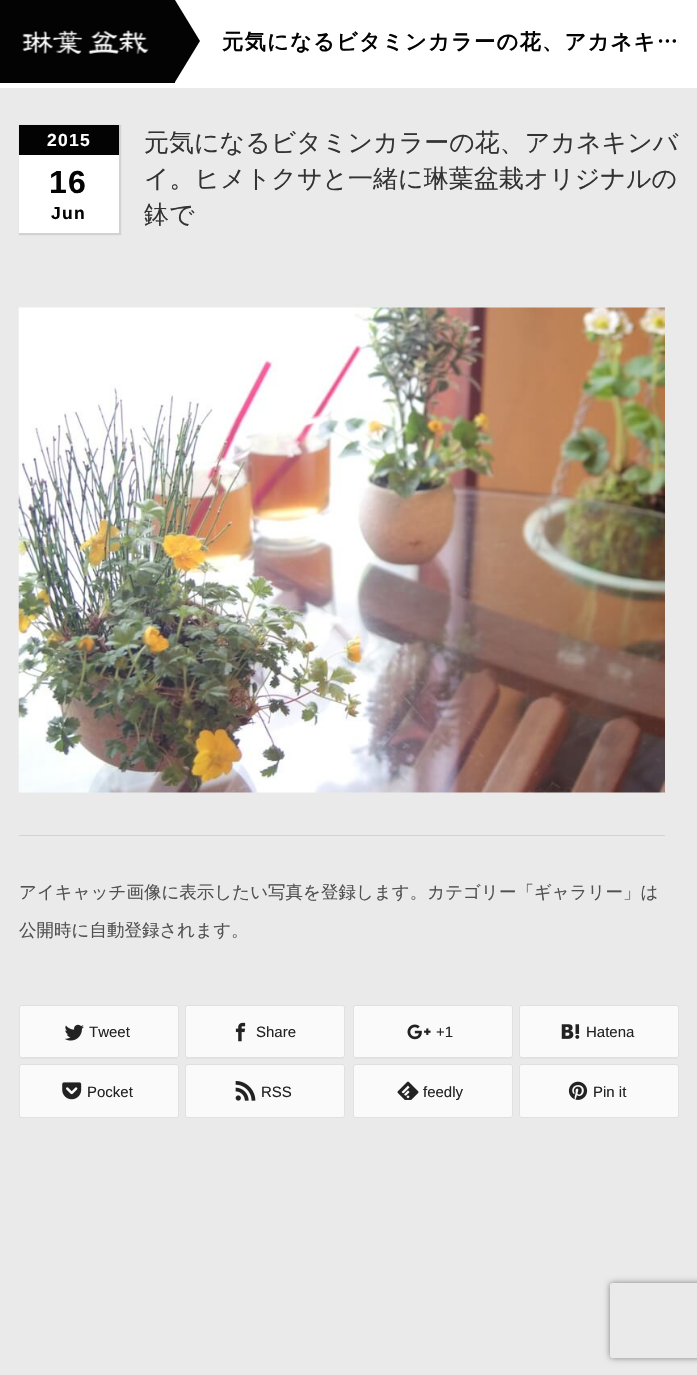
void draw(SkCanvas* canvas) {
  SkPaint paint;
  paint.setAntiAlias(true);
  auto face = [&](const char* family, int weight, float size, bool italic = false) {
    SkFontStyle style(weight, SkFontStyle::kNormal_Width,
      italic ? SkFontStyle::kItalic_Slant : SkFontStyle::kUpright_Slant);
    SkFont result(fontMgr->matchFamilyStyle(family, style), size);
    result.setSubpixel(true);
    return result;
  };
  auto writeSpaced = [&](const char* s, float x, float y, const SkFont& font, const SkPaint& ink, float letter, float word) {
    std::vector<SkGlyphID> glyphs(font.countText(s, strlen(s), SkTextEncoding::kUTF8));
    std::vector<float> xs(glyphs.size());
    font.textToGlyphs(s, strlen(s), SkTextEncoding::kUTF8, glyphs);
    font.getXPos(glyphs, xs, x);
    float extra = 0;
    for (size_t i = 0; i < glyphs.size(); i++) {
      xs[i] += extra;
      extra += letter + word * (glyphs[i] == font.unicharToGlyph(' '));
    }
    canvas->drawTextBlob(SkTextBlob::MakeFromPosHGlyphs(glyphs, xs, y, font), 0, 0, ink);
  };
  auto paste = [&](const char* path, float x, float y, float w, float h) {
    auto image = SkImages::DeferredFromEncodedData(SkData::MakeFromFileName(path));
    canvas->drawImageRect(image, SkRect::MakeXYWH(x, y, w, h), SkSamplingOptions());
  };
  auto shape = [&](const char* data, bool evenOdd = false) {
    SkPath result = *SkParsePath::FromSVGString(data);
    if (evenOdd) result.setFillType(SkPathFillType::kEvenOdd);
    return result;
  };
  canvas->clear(0xffeaeaea);
  paint.setColor(0xffffffff);
  canvas->drawRect(SkRect::MakeXYWH(0, 0, 697, 88), paint);
  canvas->save();
  canvas->clipRect(SkRect::MakeXYWH(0, 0, 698, 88));
  canvas->clipPath(shape("M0 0H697V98H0ZM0 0H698V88H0Z", true), true);
  paint.setColor(0xff000000);
  paint.setMaskFilter(SkMaskFilter::MakeBlur(kNormal_SkBlurStyle, 3));
  canvas->drawRect(SkRect::MakeXYWH(0, 0, 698, 88), paint);
  paint.setMaskFilter(nullptr);
  canvas->restore();
  paint.setColor(0xff030303);
  canvas->drawRect(SkRect::MakeXYWH(0, 0, 175, 83), paint);
  paste("img/1.png", 22, 30, 127, 24);
  canvas->drawPath(shape("M175 82V0L200 41Z"), paint);
  paint.setColor(0x1a000000);
  paint.setMaskFilter(SkMaskFilter::MakeBlur(kNormal_SkBlurStyle, 0.5f));
  canvas->drawRect(SkRect::MakeXYWH(19, 125, 102, 110), paint);
  paint.setMaskFilter(nullptr);
  paint.setColor(0xffffffff);
  canvas->drawRect(SkRect::MakeXYWH(19, 155, 100, 78), paint);
  paint.setColor(0xff030303);
  canvas->drawRect(SkRect::MakeXYWH(19, 125, 100, 30), paint);
  paste("img/2.png", 18, 307, 647, 486);
  paint.setColor(0xffd3d3d3);
  canvas->drawRect(SkRect::MakeXYWH(19, 835, 646, 1), paint);
  paint.setColor(0xffe3e3e3);
  canvas->drawPath(shape("M19 1056C19 1058 20 1059 22 1059H176C178 1059 179 1058 179 1056V1007V1047C179 1048 181 1057 176 1058H21C20 1057 19 1057 19 1056Z"), paint);
  paint.setColor(0xfffafafa);
  canvas->drawRoundRect(SkRect::MakeXYWH(19, 1005, 160, 53), 2.5f, 2.5f, paint);
  paint.setStroke(true);
  paint.setStrokeWidth(1);
  paint.setColor(0x1a000000);
  canvas->drawRoundRect(SkRect::MakeXYWH(19.5f, 1005.5f, 159, 52), 2, 2, paint);
  paste("img/3.png", 64, 1024, 20, 17);
  paint.setStroke(false);
  paint.setColor(0xffe3e3e3);
  canvas->drawPath(shape("M185 1055C185 1057 185 1059 188 1059H342C345 1059 345 1057 345 1055C345 1056 344 1058 342 1058H188C186 1058 185 1056 185 1055Z"), paint);
  paint.setColor(0xfffafafa);
  canvas->drawRoundRect(SkRect::MakeXYWH(185, 1005, 160, 53), 2.5f, 2.5f, paint);
  paint.setStroke(true);
  paint.setColor(0x1a000000);
  canvas->drawRoundRect(SkRect::MakeXYWH(185.5f, 1005.5f, 159, 52), 2, 2, paint);
  paste("img/4.png", 235, 1022, 11, 20);
  paint.setStroke(false);
  paint.setColor(0xffe3e3e3);
  canvas->drawPath(shape("M353 1056C353 1058 354 1059 356 1059H510C512 1059 513 1058 513 1056V1008L512 1007V1047C512 1048 514 1057 510 1058H355Z"), paint);
  paint.setColor(0xfffafafa);
  canvas->drawRoundRect(SkRect::MakeXYWH(353, 1005, 160, 53), 2.5f, 2.5f, paint);
  paint.setStroke(true);
  paint.setColor(0x1a000000);
  canvas->drawRoundRect(SkRect::MakeXYWH(353.5f, 1005.5f, 159, 52), 2, 2, paint);
  paste("img/5.png", 407, 1024, 24, 16);
  paint.setStroke(false);
  paint.setColor(0xffe3e3e3);
  canvas->drawPath(shape("M519 1056C519 1058 520 1059 522 1059H676C678 1059 679 1058 679 1056V1007V1047C679 1048 681 1057 676 1058H521C520 1057 519 1057 519 1056Z"), paint);
  paint.setColor(0xfffafafa);
  canvas->drawRoundRect(SkRect::MakeXYWH(519, 1005, 160, 53), 2.5f, 2.5f, paint);
  paint.setStroke(true);
  paint.setColor(0x1a000000);
  canvas->drawRoundRect(SkRect::MakeXYWH(519.5f, 1005.5f, 159, 52), 2, 2, paint);
  paste("img/6.png", 561, 1024, 19, 15);
  canvas->save();
  canvas->clipRect(SkRect::MakeXYWH(19, 999, 666, 119));
  paint.setStroke(false);
  paint.setColor(0xffe3e3e3);
  canvas->drawPath(shape("M19 1116C19 1118 20 1119 22 1119H176C178 1119 179 1118 179 1116V1066V1115C179 1116 178 1118 176 1118H21C20 1118 19 1117 19 1116Z"), paint);
  canvas->restore();
  paint.setColor(0xfffafafa);
  canvas->drawRoundRect(SkRect::MakeXYWH(19, 1064, 160, 54), 2.5f, 2.5f, paint);
  paint.setStroke(true);
  paint.setColor(0x1a000000);
  canvas->drawRoundRect(SkRect::MakeXYWH(19.5f, 1064.5f, 159, 53), 2, 2, paint);
  paste("img/7.png", 62, 1082, 20, 18);
  canvas->save();
  canvas->clipRect(SkRect::MakeXYWH(19, 999, 666, 119));
  paint.setStroke(false);
  paint.setColor(0xffe3e3e3);
  canvas->drawPath(shape("M185 1115C185 1117 185 1119 188 1119H342C345 1119 345 1117 345 1115C345 1116 344 1118 342 1118H188C186 1118 185 1116 185 1115Z"), paint);
  canvas->restore();
  paint.setColor(0xfffafafa);
  canvas->drawRoundRect(SkRect::MakeXYWH(185, 1064, 160, 54), 2.5f, 2.5f, paint);
  paint.setStroke(true);
  paint.setColor(0x1a000000);
  canvas->drawRoundRect(SkRect::MakeXYWH(185.5f, 1064.5f, 159, 53), 2, 2, paint);
  paste("img/8.png", 235, 1081, 21, 20);
  canvas->save();
  canvas->clipRect(SkRect::MakeXYWH(19, 999, 666, 119));
  paint.setStroke(false);
  paint.setColor(0xffe3e3e3);
  canvas->drawPath(shape("M353 1116C353 1118 354 1119 356 1119H510C512 1119 513 1118 513 1116V1068L512 1066V1107C512 1107 515 1117 510 1118H355Z"), paint);
  canvas->restore();
  paint.setColor(0xfffafafa);
  canvas->drawRoundRect(SkRect::MakeXYWH(353, 1064, 160, 54), 2.5f, 2.5f, paint);
  paint.setStroke(true);
  paint.setColor(0x1a000000);
  canvas->drawRoundRect(SkRect::MakeXYWH(353.5f, 1064.5f, 159, 53), 2, 2, paint);
  paste("img/9.png", 397, 1081, 22, 19);
  canvas->save();
  canvas->clipRect(SkRect::MakeXYWH(19, 999, 666, 119));
  paint.setStroke(false);
  paint.setColor(0xffe3e3e3);
  canvas->drawPath(shape("M519 1116C519 1118 520 1119 522 1119H676C678 1119 679 1118 679 1116V1066V1115C679 1116 678 1118 676 1118H521C520 1118 519 1117 519 1116Z"), paint);
  canvas->restore();
  paint.setColor(0xfffafafa);
  canvas->drawRoundRect(SkRect::MakeXYWH(519, 1064, 160, 54), 2.5f, 2.5f, paint);
  paint.setStroke(true);
  paint.setColor(0x1a000000);
  canvas->drawRoundRect(SkRect::MakeXYWH(519.5f, 1064.5f, 159, 53), 2, 2, paint);
  paste("img/10.png", 568, 1081, 20, 19);
  canvas->save();
  canvas->clipPath(shape("M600 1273H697V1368H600ZM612.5 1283H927.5C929 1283 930 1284 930 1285.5V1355.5C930 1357 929 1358 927.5 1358H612.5C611 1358 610 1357 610 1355.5V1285.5C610 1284 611 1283 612.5 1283Z", true), true);
  paint.setStroke(false);
  paint.setColor(0xff808080);
  paint.setMaskFilter(SkMaskFilter::MakeBlur(kNormal_SkBlurStyle, 3));
  canvas->drawRoundRect(SkRect::MakeXYWH(610, 1283, 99, 75), 2.5f, 2.5f, paint);
  paint.setMaskFilter(nullptr);
  canvas->restore();
  auto f0 = face("WenQuanYi Zen Hei", 700, 21.25f);
  paint.setColor(0xff030303);
  writeSpaced("元気になるビタミンカラーの花、アカネキ…", 222, 49, f0, paint, 1.25f, 0);
  auto f1 = face("Liberation Sans", 700, 17.5f);
  paint.setColor(0xffffffff);
  writeSpaced("2015", 47, 146, f1, paint, 1.25f, 0);
  auto f2 = face("Liberation Sans", 700, 32);
  paint.setColor(0xff030303);
  writeSpaced("16", 49, 193, f2, paint, 1.25f, 0);
  writeSpaced("Jun", 51, 219, f1, paint, 1.25f, 0);
  auto f3 = face("WenQuanYi Zen Hei", 500, 25);
  paint.setColor(0xff333333);
  {
    const struct { const char* s; float x, y; } items[] = {
      {"元気になるビタミンカラーの花、アカネキンバ", 144, 151},
      {"イ。ヒメトクサと一緒に琳葉盆栽オリジナルの", 144, 187},
      {"鉢で", 144, 223},
    };
    for (auto [s, x, y] : items) {
      canvas->drawString(s, x, y, f3, paint);
    }
  }
  auto f4 = face("WenQuanYi Zen Hei", 500, 17.5f);
  paint.setColor(0xff505050);
  canvas->drawString("アイキャッチ画像に表示したい写真を登録します。カテゴリー「ギャラリー」は", 19, 898, f4, paint);
  canvas->drawString("公開時に自動登録されます。", 19, 936, f4, paint);
  auto f5 = face("Liberation Sans", 400, 15);
  paint.setColor(0xff222222);
  {
    const struct { const char* s; float x, y; } items[] = {
      {"Tweet", 89, 1037},
      {"Share", 256, 1037},
      {"+1", 436, 1037},
      {"Hatena", 586, 1037},
      {"Pocket", 87, 1097},
      {"RSS", 261, 1097},
      {"feedly", 423, 1097},
      {"Pin it", 593, 1097},
    };
    for (auto [s, x, y] : items) {
      canvas->drawString(s, x, y, f5, paint);
    }
  }
}
